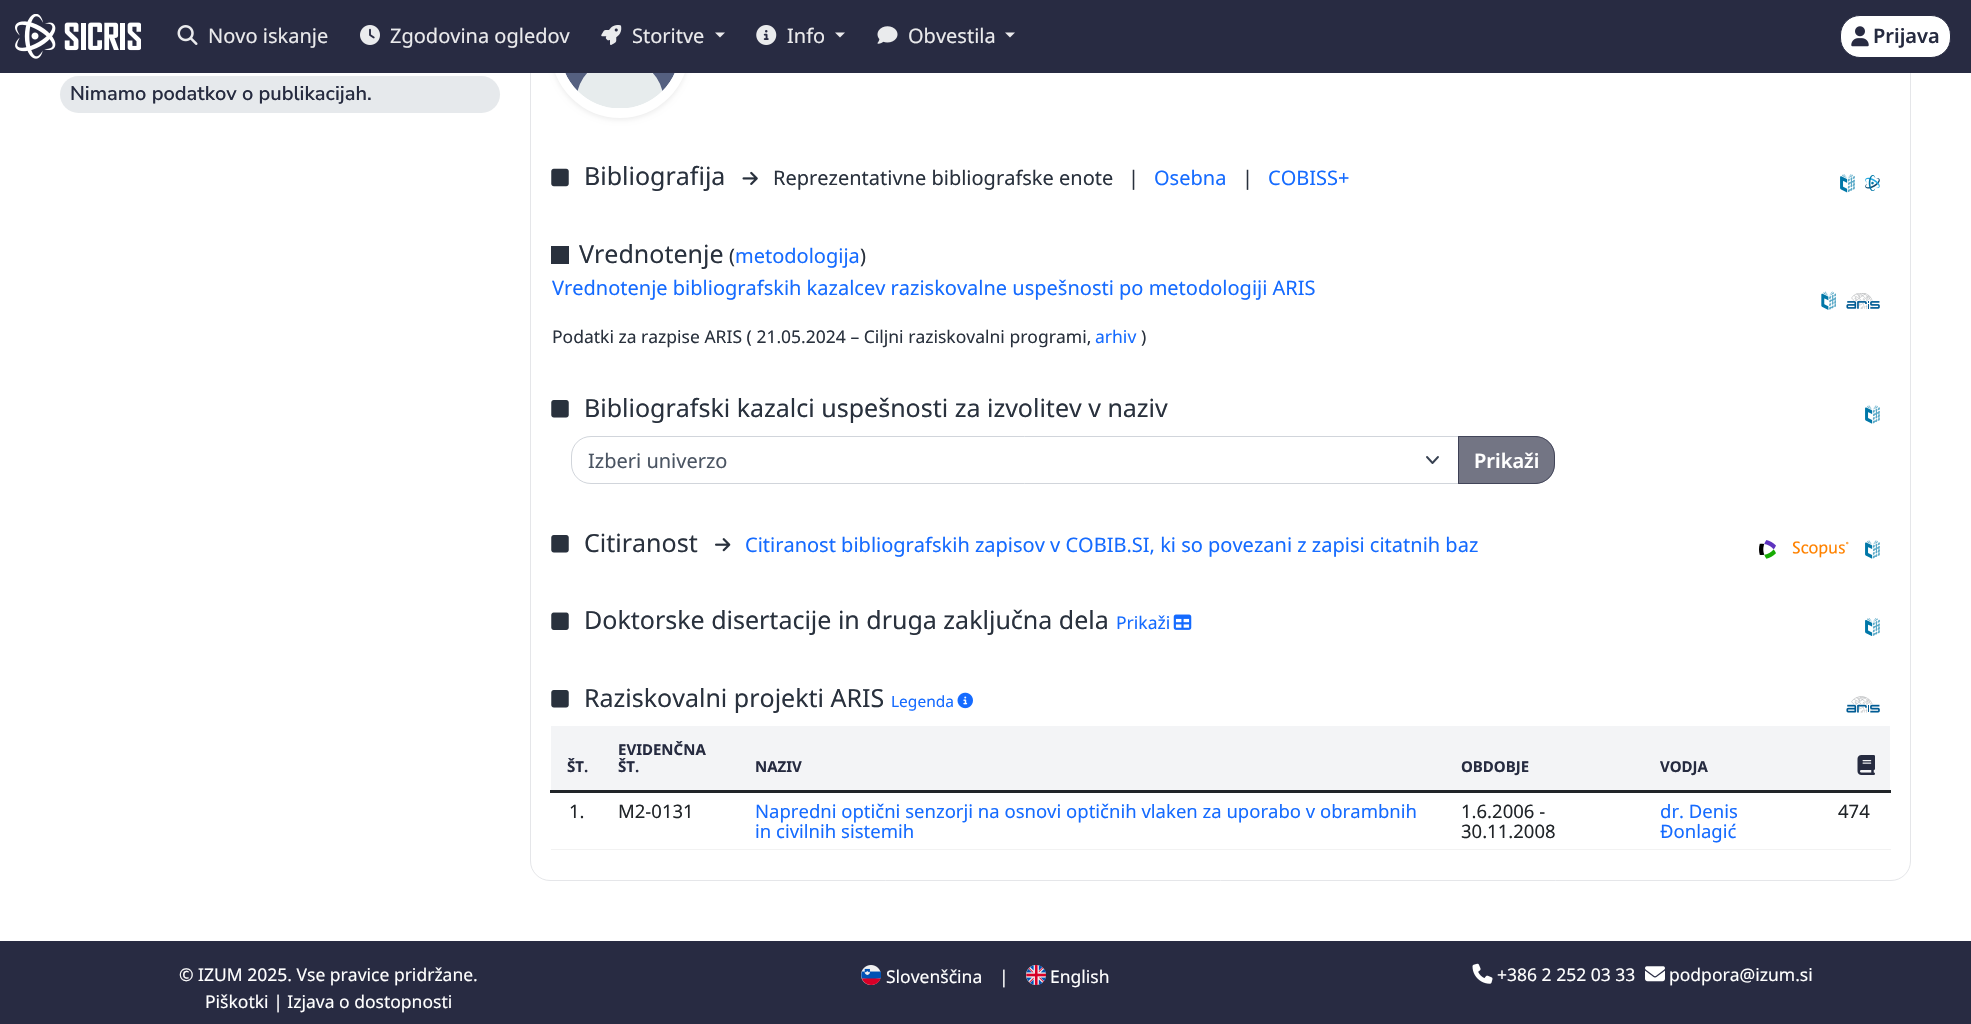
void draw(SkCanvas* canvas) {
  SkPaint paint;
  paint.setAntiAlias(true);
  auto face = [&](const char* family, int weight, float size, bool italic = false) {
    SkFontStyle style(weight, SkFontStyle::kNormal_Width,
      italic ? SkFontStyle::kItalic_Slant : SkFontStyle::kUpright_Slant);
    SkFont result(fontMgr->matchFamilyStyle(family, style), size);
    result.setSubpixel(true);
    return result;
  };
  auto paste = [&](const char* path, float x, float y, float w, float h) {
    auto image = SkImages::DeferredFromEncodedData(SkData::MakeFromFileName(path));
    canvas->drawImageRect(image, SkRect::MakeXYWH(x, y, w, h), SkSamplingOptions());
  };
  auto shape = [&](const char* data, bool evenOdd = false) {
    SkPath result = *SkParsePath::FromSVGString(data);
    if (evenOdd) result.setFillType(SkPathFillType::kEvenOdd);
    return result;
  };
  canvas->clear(0xffffffff);
  paint.setStroke(true);
  paint.setStrokeWidth(1);
  paint.setColor(0xffe5e6e9);
  canvas->drawRoundRect(SkRect::MakeXYWH(530.5f, -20.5f, 1380, 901), 19.5f, 19.5f, paint);
  paint.setStroke(false);
  paint.setColor(0x12000000);
  paint.setMaskFilter(SkMaskFilter::MakeBlur(kNormal_SkBlurStyle, 2.5f));
  canvas->drawRoundRect(SkRect::MakeXYWH(551, -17, 138, 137), 68.5f, 68.5f, paint);
  paint.setMaskFilter(nullptr);
  paint.setColor(0xffffffff);
  canvas->drawCircle(620, 49, 67, paint);
  paint.setStroke(true);
  paint.setStrokeWidth(4);
  canvas->drawCircle(620, 49, 67, paint);
  paint.setStroke(false);
  paint.setColor(0xff282b42);
  canvas->drawRect(SkRect::MakeXYWH(0, 0, 1971, 73), paint);
  paste("img/1.png", 15, 14, 126, 45);
  paste("img/2.png", 177, 25, 21, 20);
  paste("img/3.png", 360, 25, 20, 20);
  paste("img/4.png", 601, 25, 21, 20);
  paint.setColor(0xffeaeaec);
  canvas->drawPath(shape("M715 32.5H725L720 37.5Z"), paint);
  paste("img/5.png", 756, 25, 21, 20);
  canvas->drawPath(shape("M835 32.5H845L840 37.5Z"), paint);
  paste("img/6.png", 877, 26, 21, 18);
  canvas->drawPath(shape("M1005 32.5H1015L1010 37.5Z"), paint);
  paint.setColor(0xffffffff);
  canvas->drawRoundRect(SkRect::MakeXYWH(1840.5f, 15.5f, 110, 42), 19.5f, 19.5f, paint);
  paint.setStroke(true);
  paint.setStrokeWidth(1);
  paint.setColor(0xff282b42);
  canvas->drawRoundRect(SkRect::MakeXYWH(1840.5f, 15.5f, 110, 42), 19.5f, 19.5f, paint);
  paste("img/7.png", 1851, 26, 18, 21);
  paint.setStroke(false);
  paint.setColor(0xffe6e9ec);
  canvas->drawRoundRect(SkRect::MakeXYWH(60, 76, 440, 37), 18.5f, 18.5f, paint);
  paste("img/8.png", 565, 73, 110, 35);
  paste("img/9.png", 551, 168, 18, 19);
  paste("img/10.png", 742, 171, 16, 14);
  paste("img/11.png", 1840, 174, 15, 19);
  paste("img/12.png", 1865, 175, 15, 16);
  paint.setColor(0xff29313d);
  canvas->drawRect(SkRect::MakeXYWH(551, 246, 18, 18), paint);
  paste("img/13.png", 1821, 291, 15, 19);
  paste("img/14.png", 1846, 293, 34, 16);
  paste("img/15.png", 551, 400, 18, 18);
  paste("img/16.png", 1865, 405, 15, 19);
  paint.setStroke(true);
  paint.setStrokeWidth(1.9f);
  paint.setStrokeCap(SkPaint::kRound_Cap);
  paint.setStrokeJoin(SkPaint::kRound_Join);
  paint.setColor(0xff374151);
  canvas->drawPath(shape("M1427 457L1432.5 463L1438 457"), paint);
  paint.setStrokeWidth(1);
  paint.setStrokeCap(SkPaint::kButt_Cap);
  paint.setStrokeJoin(SkPaint::kMiter_Join);
  paint.setColor(0xffd1d5db);
  canvas->drawPath(shape("M591 436.5H1458.5V483.5H591C580 483.5 571.5 475 571.5 464V456C571.5 445 580 436.5 591 436.5Z"), paint);
  paint.setStroke(false);
  paint.setColor(0xa6282b42);
  canvas->drawPath(shape("M1458 436H1535C1546 436 1555 445 1555 456V464C1555 475 1546 484 1535 484H1458Z"), paint);
  paint.setStroke(true);
  canvas->drawPath(shape("M1458.5 436.5H1535C1546 436.5 1554.5 445 1554.5 456V464C1554.5 475 1546 483.5 1535 483.5H1458.5Z"), paint);
  paste("img/15.png", 551, 535, 18, 18);
  paste("img/17.png", 715, 538, 16, 14);
  paste("img/18.png", 1759, 540, 17, 19);
  paste("img/19.png", 1792, 541, 57, 17);
  paste("img/16.png", 1865, 540, 15, 19);
  paste("img/20.png", 551, 612, 18, 18);
  paste("img/21.png", 1173, 614, 19, 16);
  paste("img/22.png", 1865, 618, 15, 18);
  paste("img/15.png", 551, 690, 18, 18);
  paste("img/23.png", 957, 692, 16, 17);
  paste("img/24.png", 1846, 696, 34, 17);
  paint.setStroke(false);
  paint.setColor(0xfff3f4f6);
  canvas->drawRect(SkRect::MakeXYWH(551, 726, 1339, 64), paint);
  paste("img/25.png", 1857, 755, 18, 20);
  {
    const struct { float x, y, w, h; SkColor color; } items[] = {
      {550, 790, 1341, 3, 0xff212529},
      {551, 849, 1340, 1, 0xfff2f2f2},
      {0, 941, 1971, 83, 0xff282b42},
    };
    for (auto [x, y, w, h, color] : items) {
      paint.setColor(color);
      canvas->drawRect(SkRect::MakeXYWH(x, y, w, h), paint);
    }
  }
  paste("img/26.png", 861, 965, 20, 20);
  paste("img/27.png", 1026, 965, 20, 20);
  paste("img/28.png", 1472, 963, 21, 21);
  paste("img/29.png", 1645, 966, 20, 16);
  auto f0 = face("Noto Sans", 400, 20);
  paint.setColor(0xffeaeaec);
  {
    const struct { const char* s; float x, y; } items[] = {
      {"Novo iskanje", 208, 43},
      {"Zgodovina ogledov", 390, 43},
      {"Storitve", 632, 43},
      {"Info", 787, 43},
      {"Obvestila", 908, 43},
    };
    for (auto [s, x, y] : items) {
      canvas->drawString(s, x, y, f0, paint);
    }
  }
  auto f1 = face("Noto Sans", 600, 20);
  paint.setColor(0xff262b40);
  canvas->drawString("Prijava", 1873, 43, f1, paint);
  auto f2 = face("Nunito Sans", 600, 20);
  canvas->drawString("Nimamo podatkov o publikacijah.", 70, 100, f2, paint);
  auto f3 = face("Noto Sans", 400, 25);
  paint.setColor(0xff29313d);
  canvas->drawString("Bibliografija", 584, 185, f3, paint);
  canvas->drawString("Reprezentativne bibliografske enote", 773, 185, f0, paint);
  canvas->drawString("|", 1128, 185, f0, paint);
  paint.setColor(0xff156bff);
  canvas->drawString("Osebna", 1154, 185, f0, paint);
  paint.setColor(0xff29313d);
  canvas->drawString("|", 1242, 185, f0, paint);
  paint.setColor(0xff156bff);
  canvas->drawString("COBISS+", 1268, 185, f0, paint);
  paint.setColor(0xff29313d);
  canvas->drawString("Vrednotenje", 579, 263, f3, paint);
  canvas->drawString("(", 729, 263, f0, paint);
  paint.setColor(0xff156bff);
  canvas->drawString("metodologija", 735, 263, f0, paint);
  paint.setColor(0xff29313d);
  canvas->drawString(")", 860, 263, f0, paint);
  paint.setColor(0xff156bff);
  canvas->drawString("Vrednotenje bibliografskih kazalcev raziskovalne uspešnosti po metodologiji ARIS", 552, 295, f0, paint);
  auto f4 = face("Noto Sans", 400, 17.5f);
  paint.setColor(0xff29313d);
  canvas->drawString("Podatki za razpise ARIS ( 21.05.2024 – Ciljni raziskovalni programi,", 552, 343, f4, paint);
  paint.setColor(0xff156bff);
  canvas->drawString("arhiv", 1095, 343, f4, paint);
  paint.setColor(0xff29313d);
  canvas->drawString(")", 1141, 343, f4, paint);
  canvas->drawString("Bibliografski kazalci uspešnosti za izvolitev v naziv", 584, 417, f3, paint);
  paint.setColor(0xff4b5563);
  canvas->drawString("Izberi univerzo", 588, 468, f0, paint);
  paint.setColor(0xffffffff);
  canvas->drawString("Prikaži", 1474, 468, f1, paint);
  paint.setColor(0xff29313d);
  canvas->drawString("Citiranost", 584, 552, f3, paint);
  paint.setColor(0xff156bff);
  canvas->drawString("Citiranost bibliografskih zapisov v COBIB.SI, ki so povezani z zapisi citatnih baz", 745, 552, f0, paint);
  paint.setColor(0xff29313d);
  canvas->drawString("Doktorske disertacije in druga zaključna dela", 584, 629, f3, paint);
  paint.setColor(0xff156bff);
  canvas->drawString("Prikaži", 1116, 629, f4, paint);
  paint.setColor(0xff29313d);
  canvas->drawString("Raziskovalni projekti ARIS", 584, 707, f3, paint);
  auto f5 = face("Noto Sans", 400, 15.5f);
  paint.setColor(0xff156bff);
  canvas->drawString("Legenda", 891, 707, f5, paint);
  auto f6 = face("Noto Sans", 700, 15);
  paint.setColor(0xff262b40);
  {
    const struct { const char* s; float x, y; } items[] = {
      {"ŠT.", 567, 772},
      {"EVIDENČNA", 618, 755},
      {"ŠT.", 618, 772},
      {"NAZIV", 755, 772},
      {"OBDOBJE", 1461, 772},
      {"VODJA", 1660, 772},
    };
    for (auto [s, x, y] : items) {
      canvas->drawString(s, x, y, f6, paint);
    }
  }
  auto f7 = face("Noto Sans", 400, 18.5f);
  paint.setColor(0xff212529);
  canvas->drawString("1.", 569, 818, f7, paint);
  canvas->drawString("M2-0131", 618, 818, f7, paint);
  paint.setColor(0xff156bff);
  canvas->drawString("Napredni optični senzorji na osnovi optičnih vlaken za uporabo v obrambnih", 755, 818, f7, paint);
  canvas->drawString("in civilnih sistemih", 755, 838, f7, paint);
  paint.setColor(0xff212529);
  canvas->drawString("1.6.2006 -", 1461, 818, f7, paint);
  canvas->drawString("30.11.2008", 1461, 838, f7, paint);
  paint.setColor(0xff156bff);
  canvas->drawString("dr. Denis", 1660, 818, f7, paint);
  canvas->drawString("Đonlagić", 1660, 838, f7, paint);
  paint.setColor(0xff212529);
  canvas->drawString("474", 1838, 818, f7, paint);
  paint.setColor(0xffffffff);
  {
    const struct { const char* s; float x, y; } items[] = {
      {"© IZUM 2025. Vse pravice pridržane.", 179, 981},
      {"Piškotki | Izjava o dostopnosti", 205, 1008},
      {"Slovenščina", 886, 983},
      {"|", 999, 983},
      {"English", 1050, 983},
      {"+386 2 252 03 33", 1497, 981},
      {"podpora@izum.si", 1669, 981},
    };
    for (auto [s, x, y] : items) {
      canvas->drawString(s, x, y, f4, paint);
    }
  }
}
